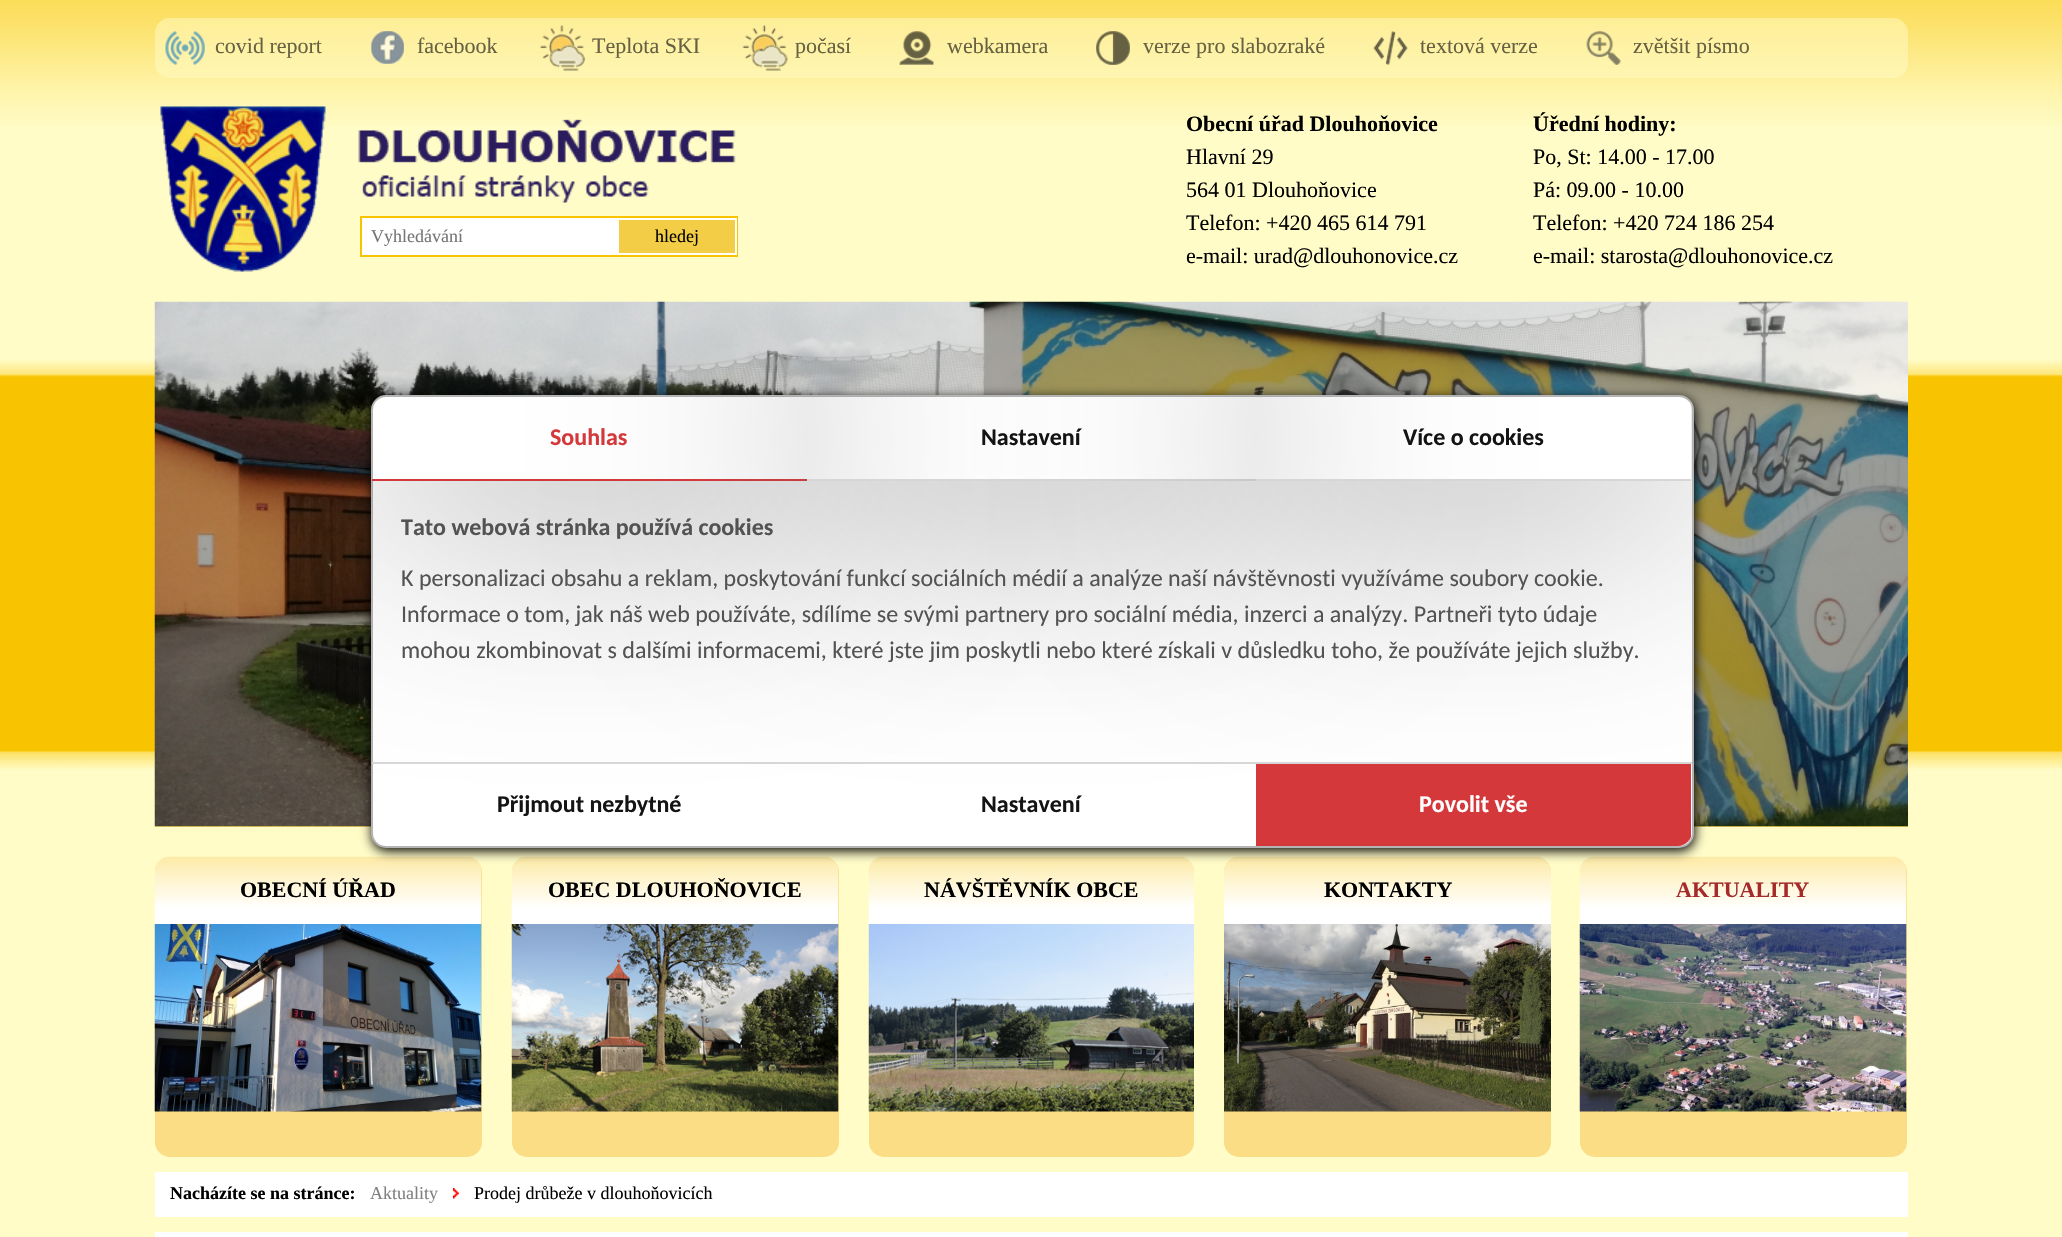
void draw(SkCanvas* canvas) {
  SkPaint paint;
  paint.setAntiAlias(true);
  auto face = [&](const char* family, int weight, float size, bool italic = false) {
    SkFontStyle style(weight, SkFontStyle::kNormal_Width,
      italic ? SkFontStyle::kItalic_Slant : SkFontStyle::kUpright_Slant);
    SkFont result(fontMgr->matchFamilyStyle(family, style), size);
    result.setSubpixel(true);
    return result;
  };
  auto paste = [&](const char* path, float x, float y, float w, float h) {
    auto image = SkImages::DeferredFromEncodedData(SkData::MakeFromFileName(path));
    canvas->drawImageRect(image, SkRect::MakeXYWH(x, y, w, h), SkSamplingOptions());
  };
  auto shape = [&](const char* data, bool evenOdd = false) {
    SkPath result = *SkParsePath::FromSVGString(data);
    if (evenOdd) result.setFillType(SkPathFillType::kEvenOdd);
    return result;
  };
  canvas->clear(0xfffffcc8);
  paste("img/1.png", 0, 0, 2062, 127);
  paint.setColor(0x80fffcc8);
  canvas->drawRoundRect(SkRect::MakeXYWH(155, 18, 1753, 60), 15, 15, paint);
  paste("img/2.png", 165, 31, 40, 34);
  paste("img/3.png", 371, 31, 33, 33);
  paste("img/4.png", 540, 25, 45, 46);
  paste("img/5.png", 742, 25, 46, 46);
  paste("img/6.png", 899, 31, 35, 34);
  paste("img/7.png", 1096, 31, 34, 34);
  paste("img/8.png", 1373, 31, 35, 34);
  paste("img/9.png", 1586, 31, 35, 34);
  paste("img/10.png", 160, 106, 576, 166);
  paint.setColor(0xfff8c300);
  canvas->drawRect(SkRect::MakeXYWH(360, 216, 378, 41), paint);
  paint.setColor(0xffffffff);
  canvas->drawRect(SkRect::MakeXYWH(362, 218, 255, 37), paint);
  paint.setColor(0xfff2cd45);
  canvas->drawRect(SkRect::MakeXYWH(618, 219, 118, 35), paint);
  paint.setStroke(true);
  paint.setStrokeWidth(2);
  paint.setColor(0xffffffff);
  canvas->drawRect(SkRect::MakeXYWH(618, 219, 118, 35), paint);
  paste("img/11.png", 0, 360, 2062, 410);
  paint.setStroke(false);
  paint.setColor(0xfffbd95b);
  canvas->drawRect(SkRect::MakeXYWH(155, 826, 1753, 1), paint);
  paste("img/12.png", 154, 301, 1754, 526);
  paint.setColor(0xfffadd85);
  canvas->drawRoundRect(SkRect::MakeXYWH(155, 857, 327, 300), 15, 15, paint);
  paste("img/13.png", 154, 856, 328, 68);
  paste("img/14.png", 154, 924, 328, 188);
  canvas->drawRoundRect(SkRect::MakeXYWH(512, 857, 327, 300), 15, 15, paint);
  paste("img/15.png", 511, 856, 328, 68);
  paste("img/16.png", 511, 924, 328, 188);
  canvas->drawRoundRect(SkRect::MakeXYWH(869, 857, 325, 300), 15, 15, paint);
  paste("img/17.png", 868, 856, 326, 68);
  paste("img/18.png", 868, 924, 326, 188);
  canvas->drawRoundRect(SkRect::MakeXYWH(1224, 857, 327, 300), 15, 15, paint);
  paste("img/19.png", 1224, 856, 327, 68);
  paste("img/20.png", 1224, 924, 327, 188);
  canvas->drawRoundRect(SkRect::MakeXYWH(1580, 857, 327, 300), 15, 15, paint);
  paste("img/21.png", 1579, 856, 328, 68);
  paste("img/22.png", 1579, 924, 328, 188);
  paint.setColor(0xffffffff);
  canvas->drawRect(SkRect::MakeXYWH(155, 1172, 1753, 45), paint);
  paste("img/23.png", 453, 1188, 6, 11);
  canvas->drawRect(SkRect::MakeXYWH(155, 1232, 1753, 5), paint);
  paint.setColor(0xff000000);
  paint.setMaskFilter(SkMaskFilter::MakeBlur(kNormal_SkBlurStyle, 6));
  canvas->drawRoundRect(SkRect::MakeXYWH(372, 398, 1323, 453), 15, 15, paint);
  paint.setMaskFilter(nullptr);
  paint.setColor(0xffffffff);
  canvas->drawRoundRect(SkRect::MakeXYWH(372, 396, 1321, 451), 14, 14, paint);
  paint.setStroke(true);
  paint.setColor(0xffb4b4b4);
  canvas->drawRoundRect(SkRect::MakeXYWH(372, 396, 1321, 451), 14, 14, paint);
  canvas->save();
  canvas->clipPath(shape("M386 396H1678C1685.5 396 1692 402.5 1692 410V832C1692 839.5 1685.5 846 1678 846H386C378.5 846 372 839.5 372 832V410C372 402.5 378.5 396 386 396Z"), true);
  canvas->clipPath(shape("M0 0H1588V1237H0ZM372 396H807V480H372Z", true), true);
  paint.setStroke(false);
  paint.setColor(0xff686868);
  paint.setMaskFilter(SkMaskFilter::MakeBlur(kNormal_SkBlurStyle, 260));
  canvas->drawRect(SkRect::MakeXYWH(372, 396, 435, 84), paint);
  paint.setMaskFilter(nullptr);
  canvas->restore();
  paint.setColor(0xffd5383a);
  canvas->drawRect(SkRect::MakeXYWH(372, 479, 435, 2), paint);
  canvas->save();
  canvas->clipPath(shape("M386 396H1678C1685.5 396 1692 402.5 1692 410V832C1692 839.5 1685.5 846 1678 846H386C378.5 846 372 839.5 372 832V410C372 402.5 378.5 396 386 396Z"), true);
  canvas->clipPath(shape("M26 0H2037V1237H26ZM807 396H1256V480H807Z", true), true);
  paint.setColor(0xff686868);
  paint.setMaskFilter(SkMaskFilter::MakeBlur(kNormal_SkBlurStyle, 260));
  canvas->drawRect(SkRect::MakeXYWH(807, 396, 449, 84), paint);
  paint.setMaskFilter(nullptr);
  canvas->restore();
  paint.setColor(0xffd6d6d6);
  canvas->drawRect(SkRect::MakeXYWH(807, 479, 449, 2), paint);
  canvas->save();
  canvas->clipPath(shape("M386 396H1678C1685.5 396 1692 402.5 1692 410V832C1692 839.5 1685.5 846 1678 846H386C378.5 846 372 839.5 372 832V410C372 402.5 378.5 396 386 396Z"), true);
  canvas->clipPath(shape("M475 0H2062V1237H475ZM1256 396H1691V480H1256Z", true), true);
  paint.setColor(0xff686868);
  paint.setMaskFilter(SkMaskFilter::MakeBlur(kNormal_SkBlurStyle, 260));
  canvas->drawRect(SkRect::MakeXYWH(1256, 396, 435, 84), paint);
  paint.setMaskFilter(nullptr);
  canvas->restore();
  paint.setColor(0xffd6d6d6);
  canvas->drawRect(SkRect::MakeXYWH(1256, 479, 435, 2), paint);
  canvas->drawRect(SkRect::MakeXYWH(372, 762, 1320, 2), paint);
  canvas->save();
  canvas->clipPath(shape("M386 396H1678C1685.5 396 1692 402.5 1692 410V832C1692 839.5 1685.5 846 1678 846H386C378.5 846 372 839.5 372 832V410C372 402.5 378.5 396 386 396Z"), true);
  paint.setColor(0xffd5383a);
  canvas->drawRect(SkRect::MakeXYWH(1256, 764, 435, 82), paint);
  canvas->restore();
  auto f0 = face("Liberation Serif", 400, 22);
  paint.setColor(0xff666142);
  {
    const struct { const char* s; float x, y; } items[] = {
      {"covid report", 215, 53},
      {"facebook", 417, 53},
      {"Teplota SKI", 592, 53},
      {"počasí", 795, 53},
      {"webkamera", 947, 53},
      {"verze pro slabozraké", 1143, 53},
      {"textová verze", 1420, 53},
      {"zvětšit písmo", 1633, 53},
    };
    for (auto [s, x, y] : items) {
      canvas->drawString(s, x, y, f0, paint);
    }
  }
  auto f1 = face("Liberation Serif", 400, 18);
  paint.setColor(0xff757575);
  canvas->drawString("Vyhledávání", 371, 242, f1, paint);
  paint.setColor(0xff000000);
  canvas->drawString("hledej", 655, 242, f1, paint);
  auto f2 = face("Liberation Serif", 700, 22);
  canvas->drawString("Obecní úřad Dlouhoňovice", 1186, 131, f2, paint);
  {
    const struct { const char* s; float x, y; } items[] = {
      {"Hlavní 29", 1186, 164},
      {"564 01 Dlouhoňovice", 1186, 197},
      {"Telefon: +420 465 614 791", 1186, 230},
      {"e-mail: urad@dlouhonovice.cz", 1186, 263},
    };
    for (auto [s, x, y] : items) {
      canvas->drawString(s, x, y, f0, paint);
    }
  }
  canvas->drawString("Úřední hodiny:", 1533, 131, f2, paint);
  {
    const struct { const char* s; float x, y; } items[] = {
      {"Po, St: 14.00 - 17.00", 1533, 164},
      {"Pá: 09.00 - 10.00", 1533, 197},
      {"Telefon: +420 724 186 254", 1533, 230},
      {"e-mail: starosta@dlouhonovice.cz", 1533, 263},
    };
    for (auto [s, x, y] : items) {
      canvas->drawString(s, x, y, f0, paint);
    }
  }
  {
    const struct { const char* s; float x, y; } items[] = {
      {"OBECNÍ ÚŘAD", 240, 897},
      {"OBEC DLOUHOŇOVICE", 548, 897},
      {"NÁVŠTĚVNÍK OBCE", 924, 897},
      {"KONTAKTY", 1324, 897},
    };
    for (auto [s, x, y] : items) {
      canvas->drawString(s, x, y, f2, paint);
    }
  }
  paint.setColor(0xffa52a2a);
  canvas->drawString("AKTUALITY", 1676, 897, f2, paint);
  auto f3 = face("Liberation Serif", 700, 18);
  paint.setColor(0xff000000);
  canvas->drawString("Nacházíte se na stránce:", 170, 1199, f3, paint);
  paint.setColor(0xff808080);
  canvas->drawString("Aktuality", 370, 1199, f1, paint);
  paint.setColor(0xff000000);
  canvas->drawString("Prodej drůbeže v dlouhoňovicích", 474, 1199, f1, paint);
  auto f4 = face("Carlito", 700, 24);
  paint.setColor(0xffd5383a);
  canvas->drawString("Souhlas", 550, 445, f4, paint);
  paint.setColor(0xff141414);
  canvas->drawString("Nastavení", 981, 445, f4, paint);
  canvas->drawString("Více o cookies", 1403, 445, f4, paint);
  paint.setColor(0xff535353);
  canvas->drawString("Tato webová stránka používá cookies", 401, 535, f4, paint);
  auto f5 = face("Carlito", 400, 24);
  {
    const struct { const char* s; float x, y; } items[] = {
      {"K personalizaci obsahu a reklam, poskytování funkcí sociálních médií a analýze naší návštěvnosti využíváme soubory cookie.", 401, 586},
      {"Informace o tom, jak náš web používáte, sdílíme se svými partnery pro sociální média, inzerci a analýzy. Partneři tyto údaje", 401, 622},
      {"mohou zkombinovat s dalšími informacemi, které jste jim poskytli nebo které získali v důsledku toho, že používáte jejich služby.", 401, 658},
    };
    for (auto [s, x, y] : items) {
      canvas->drawString(s, x, y, f5, paint);
    }
  }
  paint.setColor(0xff141414);
  canvas->drawString("Přijmout nezbytné", 497, 812, f4, paint);
  canvas->drawString("Nastavení", 981, 812, f4, paint);
  paint.setColor(0xffffffff);
  canvas->drawString("Povolit vše", 1419, 812, f4, paint);
}
